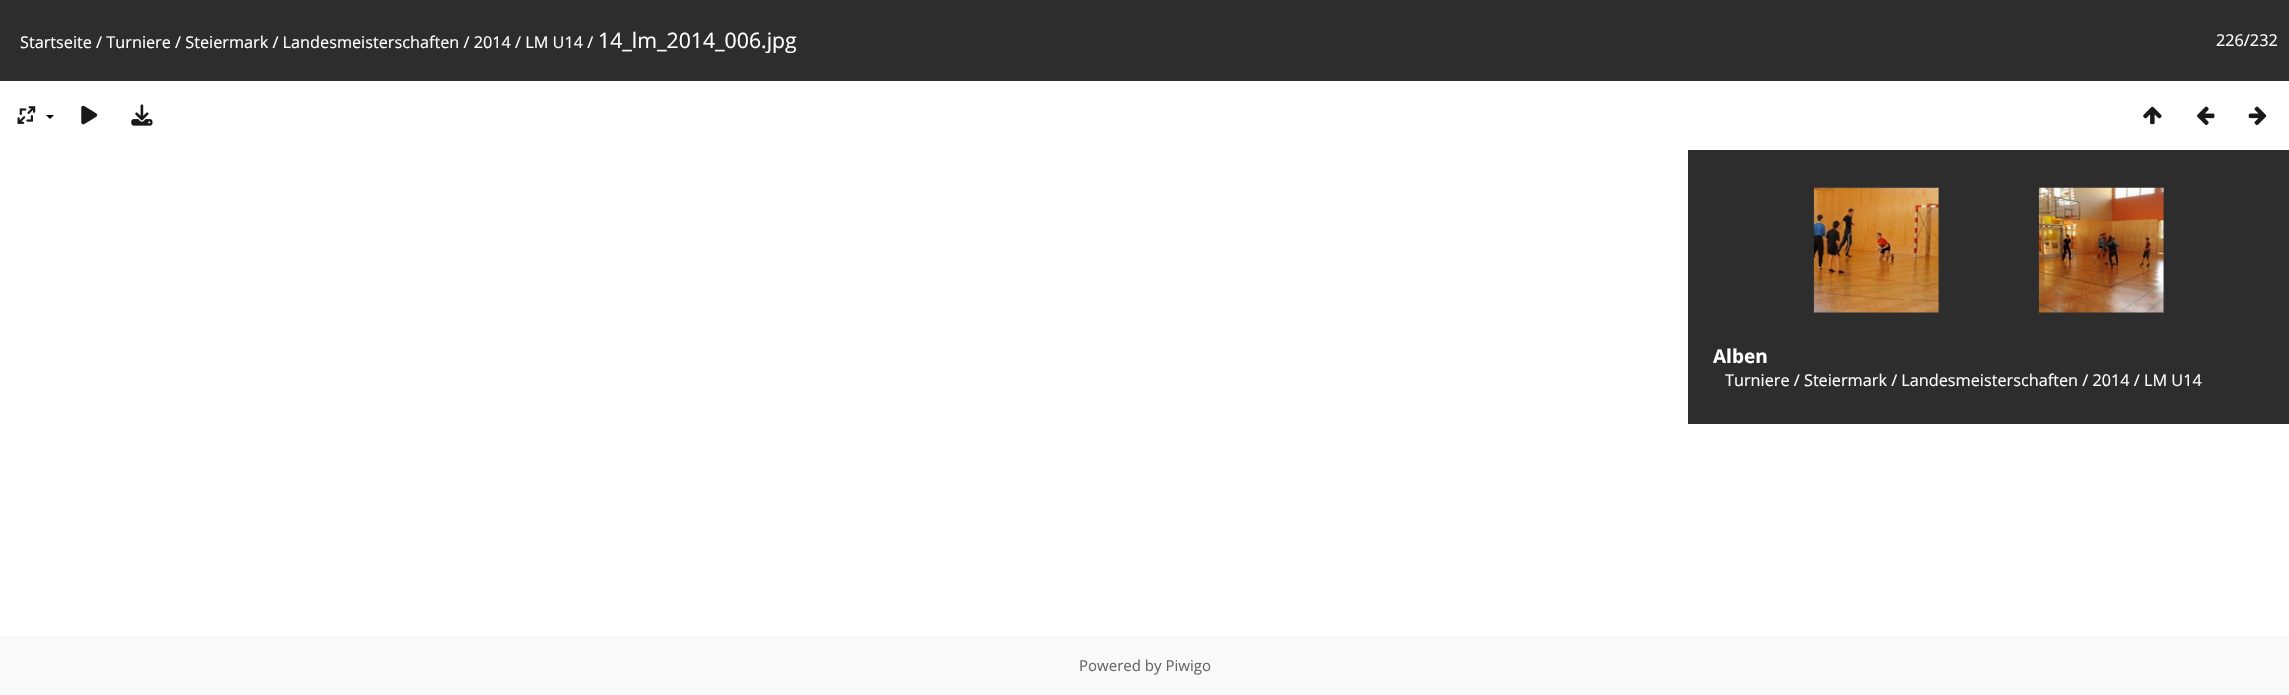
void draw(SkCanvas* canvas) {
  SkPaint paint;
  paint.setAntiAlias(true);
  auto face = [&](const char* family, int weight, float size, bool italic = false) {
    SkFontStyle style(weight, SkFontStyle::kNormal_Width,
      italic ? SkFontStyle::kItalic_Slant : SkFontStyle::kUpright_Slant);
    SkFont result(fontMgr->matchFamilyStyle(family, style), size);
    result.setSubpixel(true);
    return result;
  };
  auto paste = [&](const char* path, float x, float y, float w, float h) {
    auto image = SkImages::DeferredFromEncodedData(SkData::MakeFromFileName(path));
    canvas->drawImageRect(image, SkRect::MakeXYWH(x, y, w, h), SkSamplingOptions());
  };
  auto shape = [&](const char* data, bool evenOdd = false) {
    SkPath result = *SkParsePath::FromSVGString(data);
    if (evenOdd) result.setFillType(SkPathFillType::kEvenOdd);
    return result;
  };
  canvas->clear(0xffffffff);
  paint.setColor(0xff2d2d2d);
  canvas->drawRect(SkRect::MakeXYWH(0, 0, 2289, 81), paint);
  paste("img/1.png", 17, 106, 19, 18);
  paint.setColor(0xff000000);
  canvas->drawPath(shape("M46 115H54L50 119Z"), paint);
  paste("img/2.png", 81, 105, 17, 20);
  paste("img/3.png", 131, 104, 22, 22);
  paste("img/4.png", 2143, 106, 19, 19);
  paste("img/5.png", 2197, 106, 18, 19);
  paste("img/6.png", 2248, 106, 19, 19);
  paint.setColor(0xff2d2d2d);
  canvas->drawRect(SkRect::MakeXYWH(1688, 150, 601, 274), paint);
  paste("img/7.png", 1813, 187, 126, 126);
  paste("img/8.png", 2038, 187, 126, 126);
  paint.setColor(0xfff9f9f9);
  canvas->drawRect(SkRect::MakeXYWH(0, 636, 2289, 59), paint);
  auto f0 = face("Open Sans", 400, 16.25f);
  paint.setColor(0xffffffff);
  canvas->drawString("Startseite / Turniere / Steiermark / Landesmeisterschaften / 2014 / LM U14 /", 20, 48, f0, paint);
  auto f1 = face("Open Sans", 400, 21.25f);
  canvas->drawString("14_lm_2014_006.jpg", 598, 48, f1, paint);
  canvas->drawString("226/232", 2216, 46, f0, paint);
  auto f2 = face("Open Sans", 700, 19);
  canvas->drawString("Alben", 1713, 363, f2, paint);
  canvas->drawString("Turniere / Steiermark / Landesmeisterschaften / 2014 / LM U14", 1725, 386, f0, paint);
  auto f3 = face("Open Sans", 400, 15);
  paint.setColor(0xff666666);
  canvas->drawString("Powered by Piwigo", 1079, 671, f3, paint);
}
